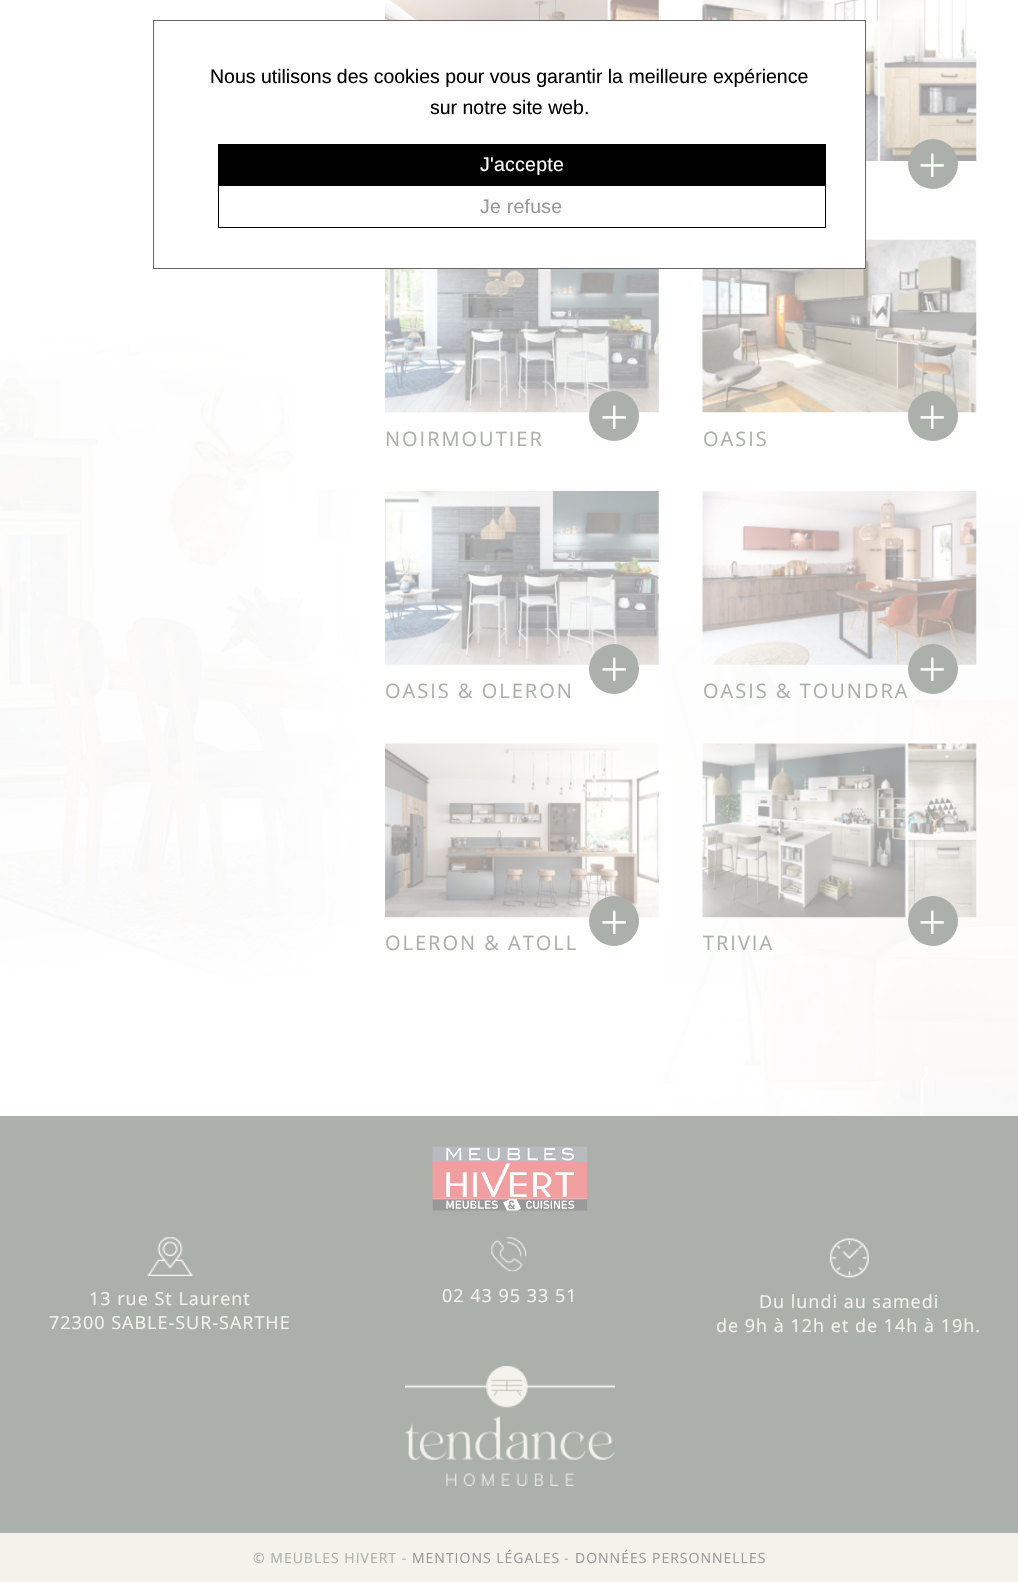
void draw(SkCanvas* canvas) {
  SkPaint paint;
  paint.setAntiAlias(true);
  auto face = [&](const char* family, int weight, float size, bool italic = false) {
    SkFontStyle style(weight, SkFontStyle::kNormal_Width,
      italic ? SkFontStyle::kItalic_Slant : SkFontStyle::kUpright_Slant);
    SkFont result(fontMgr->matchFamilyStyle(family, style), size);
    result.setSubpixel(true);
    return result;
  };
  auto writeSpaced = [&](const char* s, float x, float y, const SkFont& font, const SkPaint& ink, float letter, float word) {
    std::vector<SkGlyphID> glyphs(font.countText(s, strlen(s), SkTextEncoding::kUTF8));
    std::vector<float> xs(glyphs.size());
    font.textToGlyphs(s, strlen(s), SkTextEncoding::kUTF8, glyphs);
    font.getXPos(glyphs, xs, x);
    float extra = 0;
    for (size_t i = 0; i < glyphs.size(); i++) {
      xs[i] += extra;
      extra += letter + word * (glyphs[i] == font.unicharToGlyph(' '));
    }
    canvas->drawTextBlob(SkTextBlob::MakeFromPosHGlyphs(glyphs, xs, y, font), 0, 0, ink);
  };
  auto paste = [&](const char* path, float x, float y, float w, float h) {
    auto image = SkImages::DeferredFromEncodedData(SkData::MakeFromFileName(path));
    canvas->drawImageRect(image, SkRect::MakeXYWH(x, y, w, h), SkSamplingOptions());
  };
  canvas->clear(0xffffffff);
  paste("img/1.png", 0, 339, 1018, 777);
  paste("img/3.png", 702, 0, 275, 161);
  paste("img/5.png", 702, 239, 275, 174);
  paint.setColor(0xffffffff);
  canvas->drawRect(SkRect::MakeXYWH(702, 21, 163, 247), paint);
  paint.setStroke(true);
  paint.setStrokeWidth(1);
  paint.setColor(0xff666666);
  canvas->drawRect(SkRect::MakeXYWH(153.5f, 20.5f, 712, 248), paint);
  paint.setStroke(false);
  paint.setColor(0xff000000);
  canvas->drawRect(SkRect::MakeXYWH(218, 144, 608, 41), paint);
  paint.setStroke(true);
  canvas->drawRect(SkRect::MakeXYWH(218.5f, 185.5f, 607, 42), paint);
  paste("img/2.png", 385, 0, 274, 20);
  paint.setStroke(false);
  paint.setColor(0xffabb0aa);
  canvas->drawCircle(933, 164, 25, paint);
  paste("img/4.png", 385, 269, 274, 144);
  canvas->drawCircle(614, 416, 25, paint);
  canvas->drawCircle(933, 416, 25, paint);
  paste("img/6.png", 385, 491, 274, 174);
  canvas->drawCircle(614, 669, 25, paint);
  paste("img/7.png", 702, 491, 275, 174);
  canvas->drawCircle(933, 669, 25, paint);
  paste("img/8.png", 385, 743, 274, 175);
  canvas->drawCircle(614, 921, 25, paint);
  paste("img/9.png", 702, 743, 275, 175);
  canvas->drawCircle(933, 921, 25, paint);
  canvas->drawRect(SkRect::MakeXYWH(0, 1116, 1018, 417), paint);
  paste("img/10.png", 432, 1146, 156, 65);
  paste("img/11.png", 147, 1237, 46, 39);
  paste("img/12.png", 491, 1237, 36, 35);
  paste("img/13.png", 829, 1238, 40, 40);
  paste("img/14.png", 405, 1366, 210, 120);
  paint.setColor(0xfff4f3eb);
  canvas->drawRect(SkRect::MakeXYWH(0, 1533, 1018, 49), paint);
  auto f0 = face("Liberation Sans", 400, 19.5f);
  paint.setColor(0xff000000);
  canvas->drawString("Nous utilisons des cookies pour vous garantir la meilleure expérience", 210, 83, f0, paint);
  canvas->drawString("sur notre site web.", 430, 114, f0, paint);
  paint.setColor(0xffffffff);
  writeSpaced("J'accepte", 480, 171, f0, paint, 0.25f, 0);
  paint.setColor(0xff999999);
  writeSpaced("Je refuse", 480, 213, f0, paint, 0.25f, 0);
  auto f1 = face("Open Sans", 300, 50);
  paint.setColor(0xffffffff);
  canvas->drawString("+", 918, 183, f1, paint);
  canvas->drawString("+", 600, 435, f1, paint);
  auto f2 = face("Open Sans", 400, 20);
  paint.setColor(0xffabb0aa);
  writeSpaced("NOIRMOUTIER", 385, 446, f2, paint, 2, 0);
  paint.setColor(0xffffffff);
  canvas->drawString("+", 918, 435, f1, paint);
  paint.setColor(0xffabb0aa);
  writeSpaced("OASIS", 703, 446, f2, paint, 2, 0);
  paint.setColor(0xffffffff);
  canvas->drawString("+", 600, 687, f1, paint);
  paint.setColor(0xffabb0aa);
  writeSpaced("OASIS & OLERON", 385, 698, f2, paint, 2, 0);
  paint.setColor(0xffffffff);
  canvas->drawString("+", 918, 687, f1, paint);
  paint.setColor(0xffabb0aa);
  writeSpaced("OASIS & TOUNDRA", 703, 698, f2, paint, 2, 0);
  paint.setColor(0xffffffff);
  canvas->drawString("+", 600, 940, f1, paint);
  paint.setColor(0xffabb0aa);
  writeSpaced("OLERON & ATOLL", 385, 950, f2, paint, 2, 0);
  paint.setColor(0xffffffff);
  canvas->drawString("+", 918, 940, f1, paint);
  paint.setColor(0xffabb0aa);
  writeSpaced("TRIVIA", 703, 950, f2, paint, 2, 0);
  auto f3 = face("Open Sans", 400, 18);
  paint.setColor(0xfff4f3eb);
  {
    const struct { const char* s; float x, y; } items[] = {
      {"13 rue St Laurent", 89, 1305},
      {"72300 SABLE-SUR-SARTHE", 49, 1329},
      {"02 43 95 33 51", 442, 1302},
      {"Du lundi au samedi", 759, 1308},
      {"de 9h à 12h et de 14h à 19h.", 716, 1332},
    };
    for (auto [s, x, y] : items) {
      writeSpaced(s, x, y, f3, paint, 1, 0);
    }
  }
  auto f4 = face("Open Sans", 400, 14);
  paint.setColor(0xffabb0aa);
  writeSpaced("© MEUBLES HIVERT -", 253, 1563, f4, paint, 1, 0);
  paint.setColor(0xff999999);
  writeSpaced("MENTIONS LÉGALES", 412, 1563, f4, paint, 1, 0);
  paint.setColor(0xffabb0aa);
  writeSpaced("-", 564, 1563, f4, paint, 1, 0);
  paint.setColor(0xff999999);
  writeSpaced("DONNÉES PERSONNELLES", 575, 1563, f4, paint, 1, 0);
}
